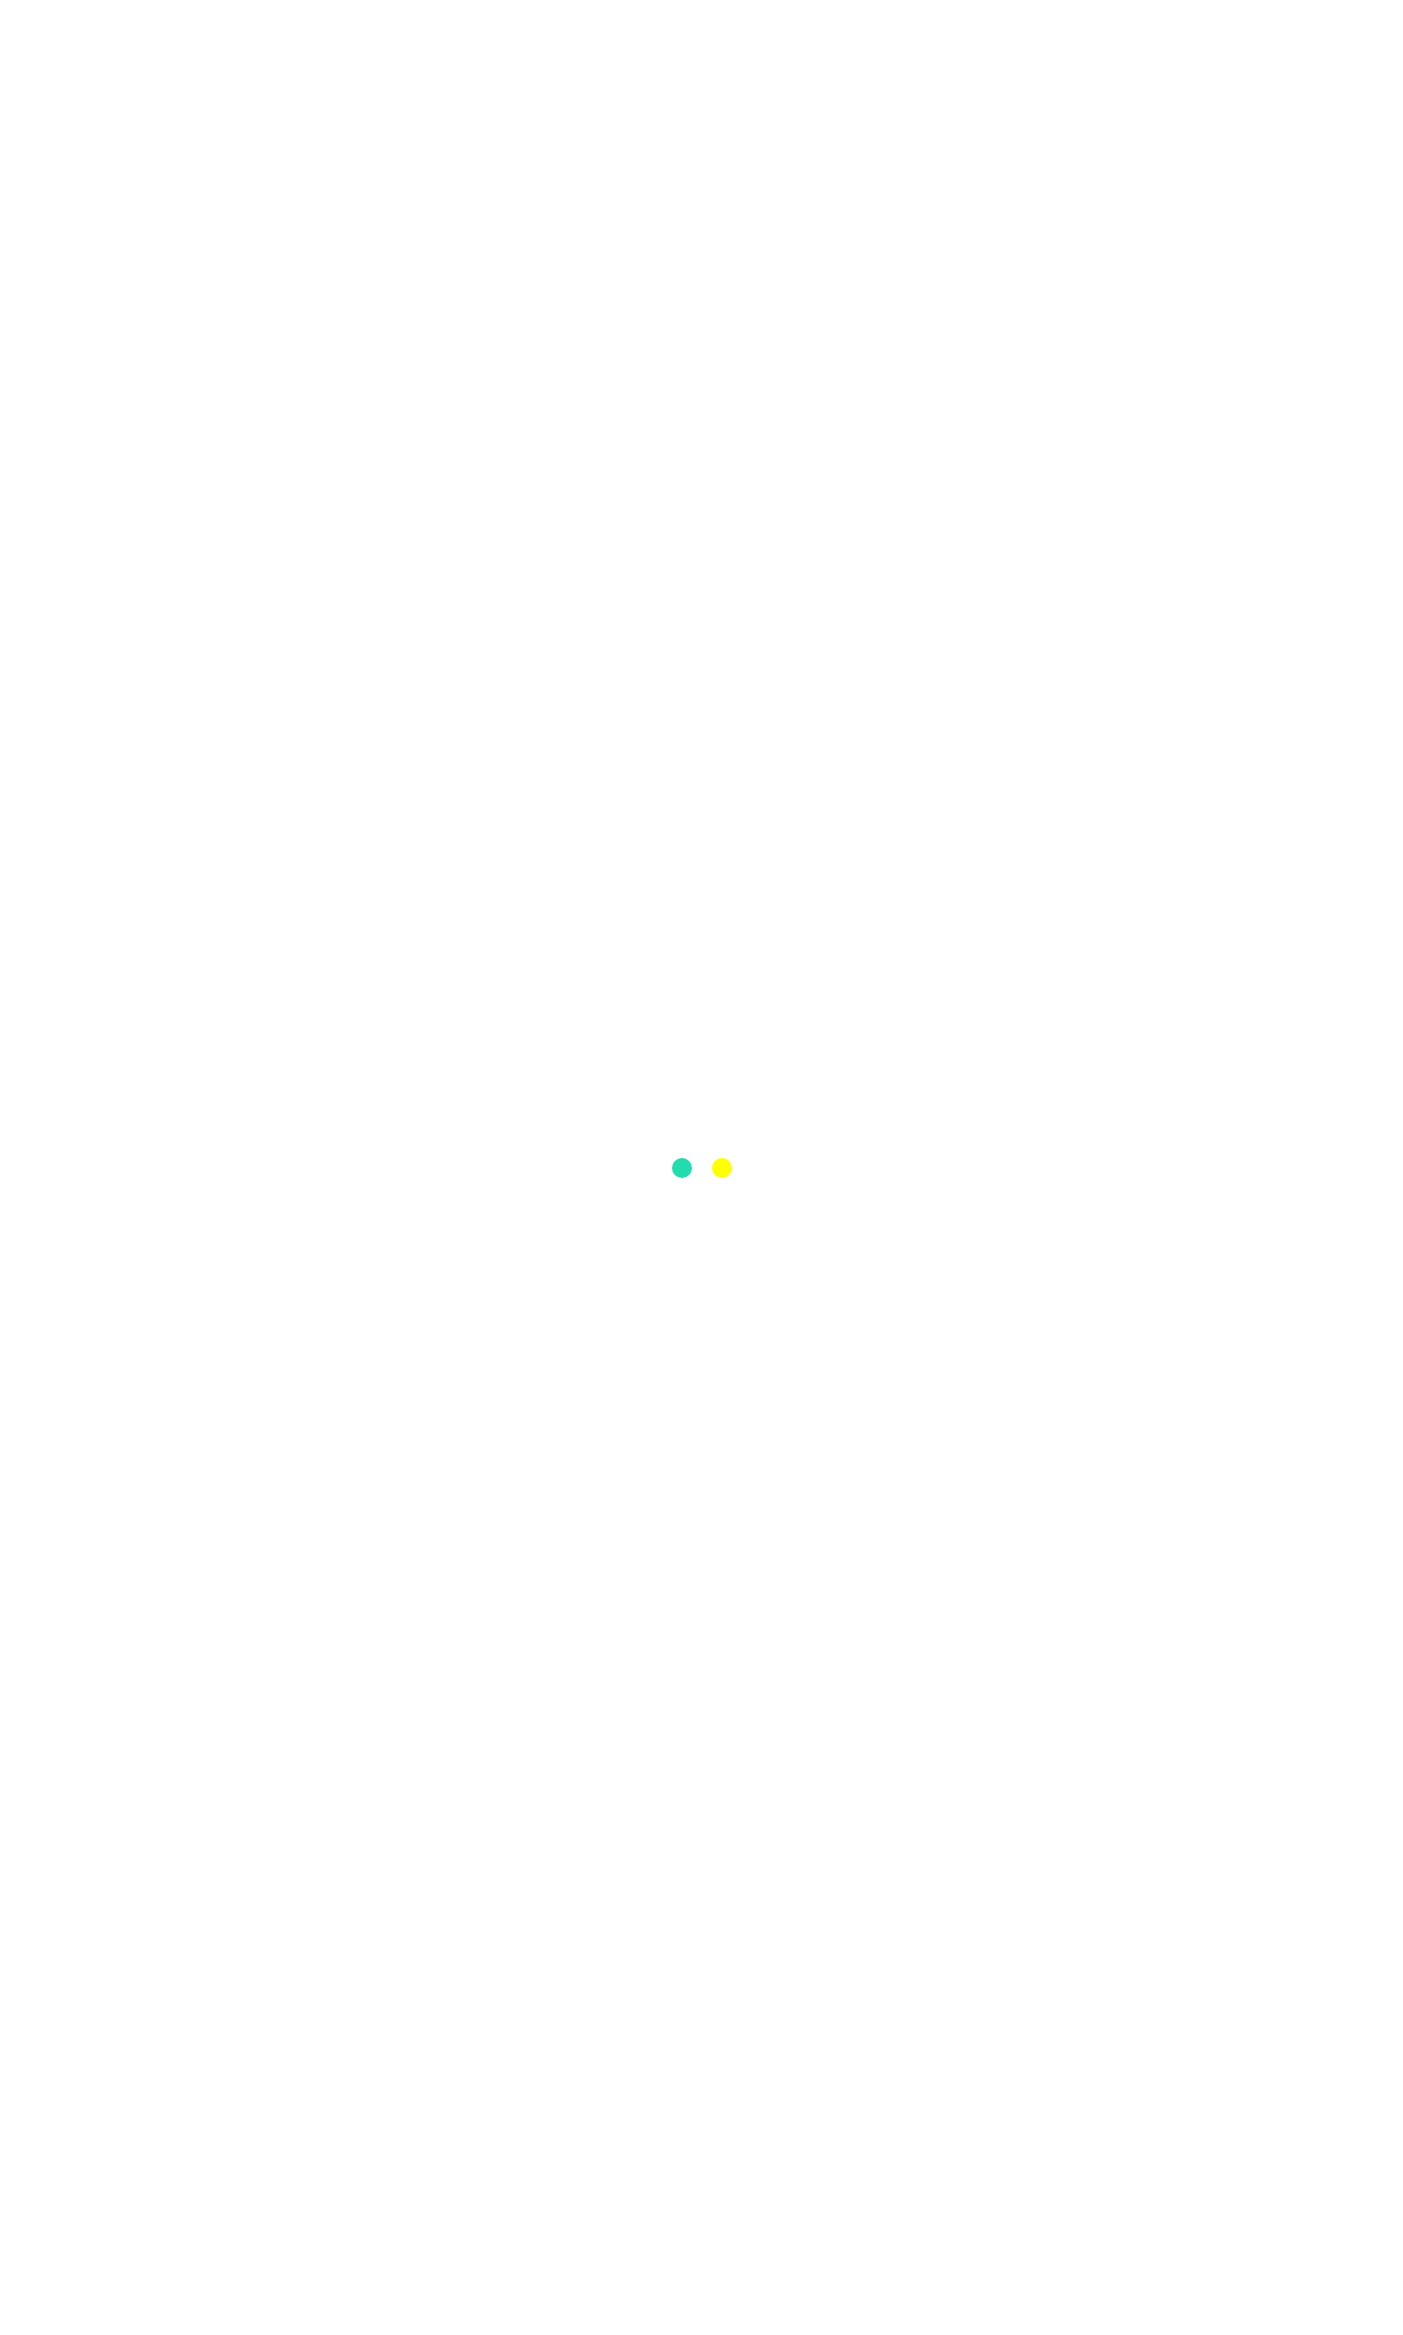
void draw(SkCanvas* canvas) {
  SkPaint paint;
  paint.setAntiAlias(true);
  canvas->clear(0xffffffff);
  paint.setColor(0xff23dcae);
  canvas->drawCircle(682, 1168, 10, paint);
  paint.setColor(0xffffff00);
  canvas->drawCircle(722, 1168, 10, paint);
}
